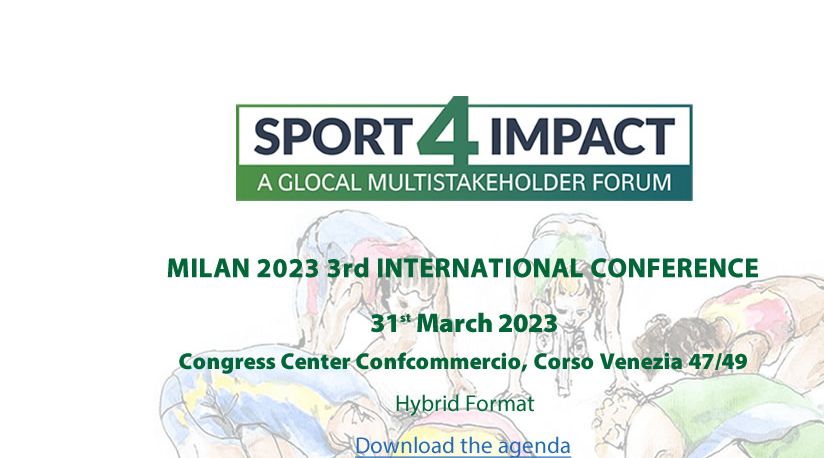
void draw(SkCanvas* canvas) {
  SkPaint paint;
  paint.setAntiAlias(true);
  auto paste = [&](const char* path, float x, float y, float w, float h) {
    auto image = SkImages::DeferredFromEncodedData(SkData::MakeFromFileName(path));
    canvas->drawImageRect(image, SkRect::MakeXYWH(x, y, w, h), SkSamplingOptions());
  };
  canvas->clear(0xffffffff);
  paste("img/1.png", 153, 94, 671, 364);
}
